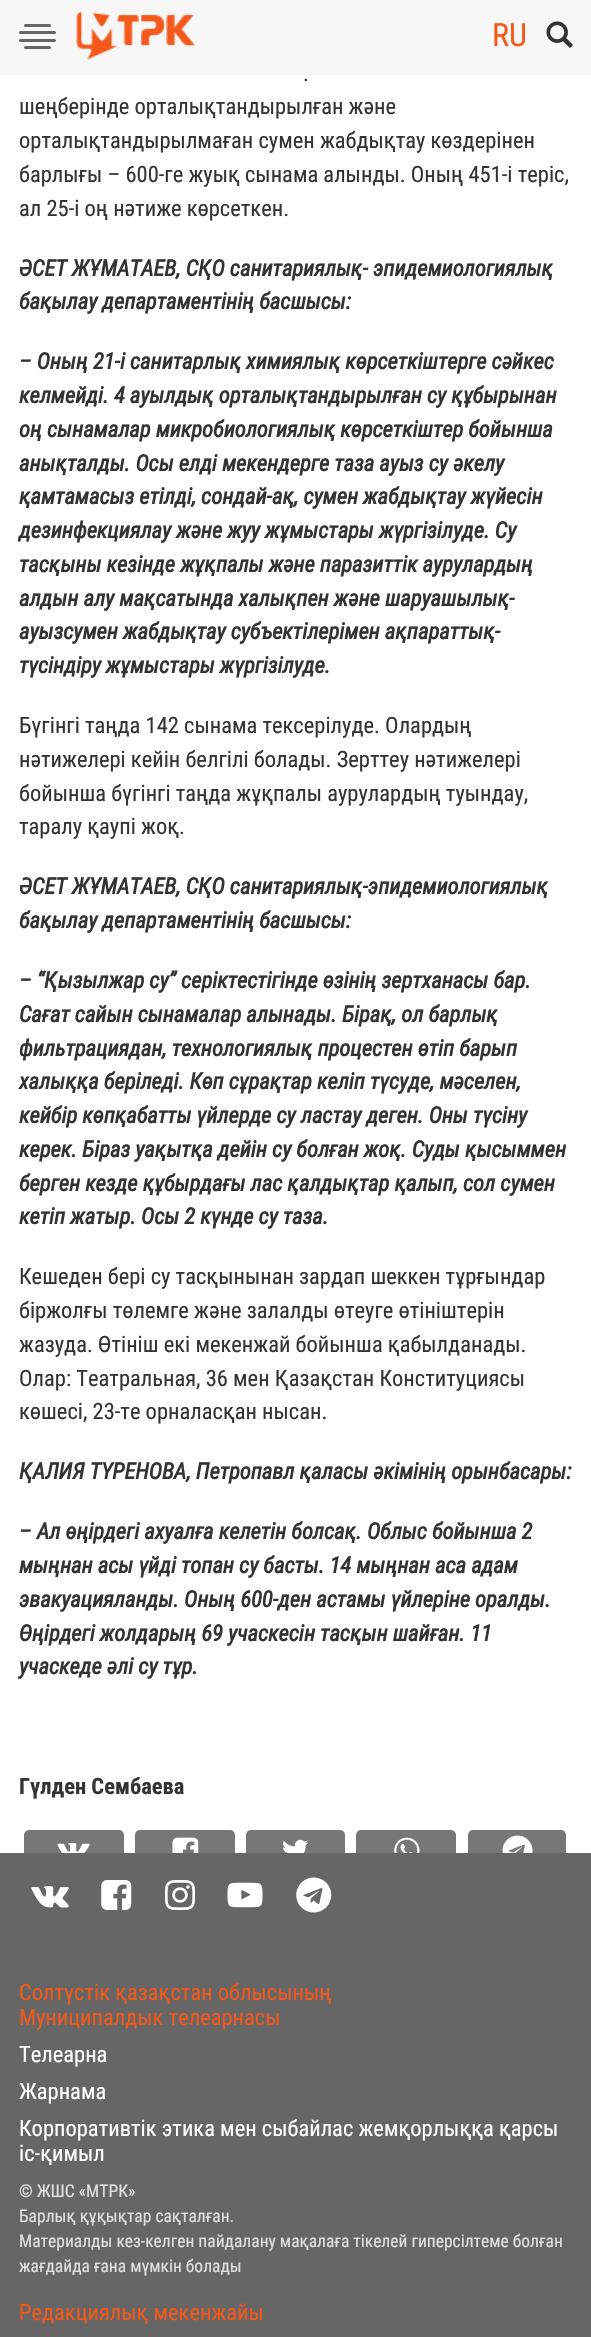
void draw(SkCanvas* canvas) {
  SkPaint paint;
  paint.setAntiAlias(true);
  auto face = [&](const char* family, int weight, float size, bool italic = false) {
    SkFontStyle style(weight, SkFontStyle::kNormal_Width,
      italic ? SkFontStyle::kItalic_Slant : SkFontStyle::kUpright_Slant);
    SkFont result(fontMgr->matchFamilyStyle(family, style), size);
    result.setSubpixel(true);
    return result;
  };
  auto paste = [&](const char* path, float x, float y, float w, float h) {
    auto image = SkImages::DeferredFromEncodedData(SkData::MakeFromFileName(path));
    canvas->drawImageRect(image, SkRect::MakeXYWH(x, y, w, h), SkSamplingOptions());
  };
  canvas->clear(0xffffffff);
  paint.setColor(0xfff7f7f7);
  canvas->drawRect(SkRect::MakeXYWH(0, 0, 591, 75), paint);
  paint.setColor(0xff666666);
  canvas->drawRoundRect(SkRect::MakeXYWH(24, 24, 27, 3), 1.5f, 1.5f, paint);
  canvas->drawRoundRect(SkRect::MakeXYWH(19, 31, 37, 3), 1.5f, 1.5f, paint);
  canvas->drawRoundRect(SkRect::MakeXYWH(19, 39, 37, 3), 1.5f, 1.5f, paint);
  canvas->drawRoundRect(SkRect::MakeXYWH(24, 46, 27, 3), 1.5f, 1.5f, paint);
  paste("img/1.png", 76, 11, 120, 49);
  paste("img/2.png", 546, 21, 27, 27);
  paint.setColor(0xff777777);
  canvas->drawRoundRect(SkRect::MakeXYWH(24, 1830, 100, 45), 5, 5, paint);
  paste("img/3.png", 57, 1842, 33, 11);
  canvas->drawRoundRect(SkRect::MakeXYWH(135, 1830, 100, 45), 5, 5, paint);
  paste("img/4.png", 172, 1837, 27, 16);
  canvas->drawRoundRect(SkRect::MakeXYWH(246, 1830, 99, 45), 5, 5, paint);
  paste("img/5.png", 283, 1839, 26, 14);
  canvas->drawRoundRect(SkRect::MakeXYWH(356, 1830, 100, 45), 5, 5, paint);
  paste("img/6.png", 394, 1837, 26, 16);
  canvas->drawRoundRect(SkRect::MakeXYWH(468, 1830, 98, 45), 5, 5, paint);
  paste("img/7.png", 502, 1835, 31, 18);
  paint.setColor(0xff666666);
  canvas->drawRect(SkRect::MakeXYWH(0, 1853, 591, 484), paint);
  paste("img/8.png", 31, 1886, 38, 22);
  paste("img/9.png", 101, 1880, 31, 30);
  paste("img/10.png", 165, 1880, 30, 30);
  paste("img/11.png", 227, 1882, 36, 26);
  paste("img/12.png", 296, 1877, 36, 36);
  auto f0 = face("Roboto Condensed", 400, 32);
  paint.setColor(0xfff4581a);
  canvas->drawString("RU", 492, 46, f0, paint);
  auto f1 = face("Roboto Condensed", 400, 22.5f);
  paint.setColor(0xff333333);
  {
    const struct { const char* s; float x, y; } items[] = {
      {".", 303, 81},
      {"шеңберінде орталықтандырылған және", 19, 114},
      {"орталықтандырылмаған сумен жабдықтау көздерінен", 19, 148},
      {"барлығы – 600-ге жуық сынама алынды. Оның 451-і теріс,", 19, 182},
      {"ал 25-і оң нәтиже көрсеткен.", 19, 216},
    };
    for (auto [s, x, y] : items) {
      canvas->drawString(s, x, y, f1, paint);
    }
  }
  auto f2 = face("Roboto Condensed", 700, 22.5f, true);
  {
    const struct { const char* s; float x, y; } items[] = {
      {"ӘСЕТ ЖҰМАТАЕВ, СҚО санитариялық- эпидемиологиялық", 19, 276},
      {"бақылау департаментінің басшысы:", 19, 309},
      {"– Оның 21-і санитарлық химиялық көрсеткіштерге сәйкес", 19, 369},
      {"келмейді. 4 ауылдық орталықтандырылған су құбырынан", 19, 403},
      {"оң сынамалар микробиологиялық көрсеткіштер бойынша", 19, 437},
      {"анықталды. Осы елді мекендерге таза ауыз су әкелу", 19, 471},
      {"қамтамасыз етілді, сондай-ақ, сумен жабдықтау жүйесін", 19, 504},
      {"дезинфекциялау және жуу жұмыстары жүргізілуде. Су", 19, 538},
      {"тасқыны кезінде жұқпалы және паразиттік аурулардың", 19, 572},
      {"алдын алу мақсатында халықпен және шаруашылық-", 19, 606},
      {"ауызсумен жабдықтау субъектілерімен ақпараттық-", 19, 639},
      {"түсіндіру жұмыстары жүргізілуде.", 19, 673},
    };
    for (auto [s, x, y] : items) {
      canvas->drawString(s, x, y, f2, paint);
    }
  }
  {
    const struct { const char* s; float x, y; } items[] = {
      {"Бүгінгі таңда 142 сынама тексерілуде. Олардың", 19, 733},
      {"нәтижелері кейін белгілі болады. Зерттеу нәтижелері", 19, 767},
      {"бойынша бүгінгі таңда жұқпалы аурулардың туындау,", 19, 801},
      {"таралу қаупі жоқ.", 19, 834},
    };
    for (auto [s, x, y] : items) {
      canvas->drawString(s, x, y, f1, paint);
    }
  }
  {
    const struct { const char* s; float x, y; } items[] = {
      {"ӘСЕТ ЖҰМАТАЕВ, СҚО санитариялық-эпидемиологиялық", 19, 894},
      {"бақылау департаментінің басшысы:", 19, 928},
      {"– “Қызылжар су” серіктестігінде өзінің зертханасы бар.", 19, 988},
      {"Сағат сайын сынамалар алынады. Бірақ, ол барлық", 19, 1022},
      {"фильтрациядан, технологиялық процестен өтіп барып", 19, 1056},
      {"халыққа беріледі. Көп сұрақтар келіп түсуде, мәселен,", 19, 1089},
      {"кейбір көпқабатты үйлерде су ластау деген. Оны түсіну", 19, 1123},
      {"керек. Біраз уақытқа дейін су болған жоқ. Суды қысыммен", 19, 1157},
      {"берген кезде құбырдағы лас қалдықтар қалып, сол сумен", 19, 1191},
      {"кетіп жатыр. Осы 2 күнде су таза.", 19, 1224},
    };
    for (auto [s, x, y] : items) {
      canvas->drawString(s, x, y, f2, paint);
    }
  }
  {
    const struct { const char* s; float x, y; } items[] = {
      {"Кешеден бері су тасқынынан зардап шеккен тұрғындар", 19, 1284},
      {"біржолғы төлемге және залалды өтеуге өтініштерін", 19, 1318},
      {"жазуда. Өтініш екі мекенжай бойынша қабылданады.", 19, 1352},
      {"Олар: Театральная, 36 мен Қазақстан Конституциясы", 19, 1386},
      {"көшесі, 23-те орналасқан нысан.", 19, 1419},
    };
    for (auto [s, x, y] : items) {
      canvas->drawString(s, x, y, f1, paint);
    }
  }
  {
    const struct { const char* s; float x, y; } items[] = {
      {"ҚАЛИЯ ТҮРЕНОВА, Петропавл қаласы әкімінің орынбасары:", 19, 1479},
      {"– Ал өңірдегі ахуалға келетін болсақ. Облыс бойынша 2", 19, 1539},
      {"мыңнан асы үйді топан су басты. 14 мыңнан аса адам", 19, 1573},
      {"эвакуацияланды. Оның 600-ден астамы үйлеріне оралды.", 19, 1607},
      {"Өңірдегі жолдарың 69 учаскесін тасқын шайған. 11", 19, 1641},
      {"учаскеде әлі су тұр.", 19, 1674},
    };
    for (auto [s, x, y] : items) {
      canvas->drawString(s, x, y, f2, paint);
    }
  }
  auto f3 = face("Roboto Condensed", 700, 22.5f);
  canvas->drawString("Гүлден Сембаева", 19, 1794, f3, paint);
  paint.setColor(0xfff4581a);
  canvas->drawString("Солтүстік қазақстан облысының", 19, 2000, f1, paint);
  canvas->drawString("Муниципалдык телеарнасы", 19, 2025, f1, paint);
  paint.setColor(0xffffffff);
  {
    const struct { const char* s; float x, y; } items[] = {
      {"Телеарна", 19, 2062},
      {"Жарнама", 19, 2099},
      {"Корпоративтік этика мен сыбайлас жемқорлыққа қарсы", 19, 2136},
      {"іс-қимыл", 19, 2161},
    };
    for (auto [s, x, y] : items) {
      canvas->drawString(s, x, y, f1, paint);
    }
  }
  auto f4 = face("Roboto Condensed", 400, 17.5f);
  paint.setColor(0xffdfe0e2);
  {
    const struct { const char* s; float x, y; } items[] = {
      {"© ЖШС «МТРК»", 19, 2197},
      {"Барлық құқықтар сақталған.", 19, 2222},
      {"Материалды кез-келген пайдалану мақалаға тікелей гиперсілтеме болған", 19, 2247},
      {"жағдайда ғана мүмкін болады", 19, 2272},
    };
    for (auto [s, x, y] : items) {
      canvas->drawString(s, x, y, f4, paint);
    }
  }
  paint.setColor(0xfff4581a);
  canvas->drawString("Редакциялық мекенжайы", 19, 2320, f1, paint);
}
